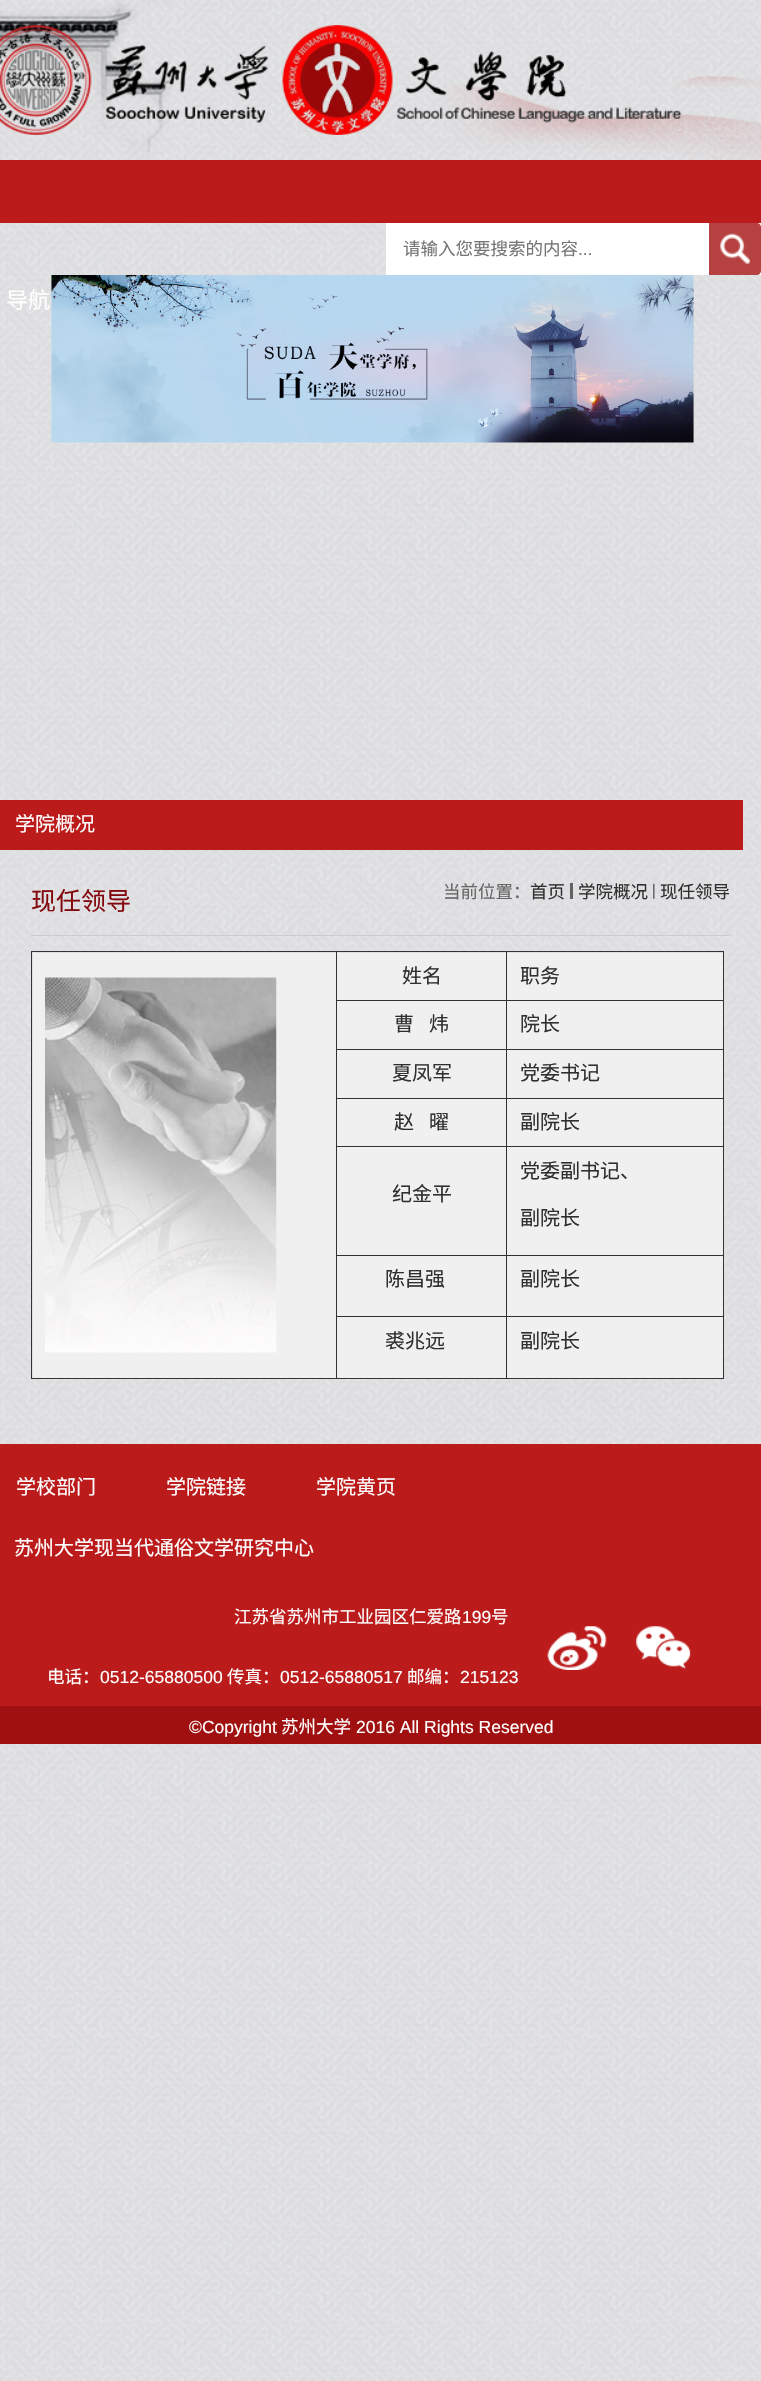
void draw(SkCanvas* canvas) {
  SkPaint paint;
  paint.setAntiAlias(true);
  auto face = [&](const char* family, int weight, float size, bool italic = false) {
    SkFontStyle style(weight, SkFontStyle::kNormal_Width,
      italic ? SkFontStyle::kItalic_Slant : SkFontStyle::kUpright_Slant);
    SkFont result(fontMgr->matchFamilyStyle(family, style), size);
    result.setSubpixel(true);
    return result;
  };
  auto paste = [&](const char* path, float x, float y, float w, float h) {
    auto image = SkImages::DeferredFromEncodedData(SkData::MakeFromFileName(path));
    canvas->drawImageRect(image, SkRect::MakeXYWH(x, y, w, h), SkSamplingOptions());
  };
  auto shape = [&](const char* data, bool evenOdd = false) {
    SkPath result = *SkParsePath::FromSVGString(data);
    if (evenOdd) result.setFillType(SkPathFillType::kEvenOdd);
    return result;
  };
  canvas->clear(0xffffffff);
  paste("img/1.png", 0, 0, 761, 2381);
  paste("img/2.png", 0, 0, 173, 160);
  paste("img/3.png", 442, 76, 319, 84);
  paste("img/4.png", 0, 25, 682, 110);
  paint.setColor(0xffffffff);
  canvas->drawRect(SkRect::MakeXYWH(386, 223, 375, 52), paint);
  paint.setColor(0xffb54241);
  canvas->drawPath(shape("M709 223H757C759 223 761 225 761 227V271C761 273 759 275 757 275H709Z"), paint);
  paste("img/5.png", 720, 233, 30, 31);
  paint.setColor(0xffbb1b1b);
  canvas->drawRect(SkRect::MakeXYWH(0, 160, 761, 63), paint);
  paste("img/6.png", 51, 275, 643, 168);
  {
    const struct { float x, y, w, h; SkColor color; } items[] = {
      {0, 800, 743, 50, 0xffbb1b1b},
      {31, 935, 699, 1, 0xffcccccc},
      {570, 883, 3, 16, 0xcf444444},
    };
    for (auto [x, y, w, h, color] : items) {
      paint.setColor(color);
      canvas->drawRect(SkRect::MakeXYWH(x, y, w, h), paint);
    }
  }
  paste("img/7.png", 653, 883, 2, 16);
  {
    const struct { float x, y, w, h; SkColor color; } items[] = {
      {33, 953, 303, 425, 0xfff0f0f1},
      {506, 951, 218, 1, 0xff333333},
      {337, 953, 386, 47, 0xfff0f0f1},
      {506, 1000, 218, 1, 0xff333333},
      {337, 1001, 386, 48, 0xfff0f0f1},
      {506, 1049, 218, 1, 0xff333333},
      {337, 1050, 386, 48, 0xfff0f0f1},
      {506, 1098, 218, 1, 0xff333333},
      {337, 1099, 386, 49, 0xfff0f0f1},
      {506, 1146, 218, 1, 0xff333333},
      {337, 1148, 386, 107, 0xfff0f0f1},
      {506, 1255, 218, 1, 0xff333333},
      {337, 1256, 386, 62, 0xfff0f0f1},
      {506, 1316, 218, 1, 0xff333333},
      {337, 1318, 386, 60, 0xfff0f0f1},
      {723, 1316, 1, 63, 0xff333333},
      {506, 1378, 218, 1, 0xff333333},
      {506, 1316, 1, 63, 0xff333333},
      {336, 1316, 172, 1, 0xff333333},
      {506, 1255, 1, 63, 0xff333333},
      {336, 1255, 172, 1, 0xff333333},
      {506, 1146, 1, 110, 0xff333333},
      {336, 1146, 172, 1, 0xff333333},
      {506, 1098, 1, 50, 0xff333333},
      {336, 1098, 172, 1, 0xff333333},
      {506, 1049, 1, 50, 0xff333333},
      {336, 1049, 172, 1, 0xff333333},
      {506, 1000, 1, 50, 0xff333333},
      {336, 1000, 172, 1, 0xff333333},
      {506, 951, 1, 50, 0xff333333},
      {336, 951, 172, 1, 0xff333333},
      {336, 1378, 172, 1, 0xff333333},
      {336, 1316, 1, 63, 0xff333333},
      {336, 1255, 1, 63, 0xff333333},
      {336, 1146, 1, 110, 0xff333333},
      {336, 1098, 1, 50, 0xff333333},
      {336, 1049, 1, 50, 0xff333333},
      {336, 1000, 1, 50, 0xff333333},
      {336, 951, 1, 50, 0xff333333},
      {31, 951, 307, 1, 0xff333333},
      {31, 1378, 307, 1, 0xff333333},
      {31, 951, 1, 428, 0xff333333},
    };
    for (auto [x, y, w, h, color] : items) {
      paint.setColor(color);
      canvas->drawRect(SkRect::MakeXYWH(x, y, w, h), paint);
    }
  }
  paste("img/8.png", 45, 977, 232, 376);
  {
    const struct { float x, y, w, h; SkColor color; } items[] = {
      {723, 1255, 1, 63, 0xff333333},
      {723, 1146, 1, 110, 0xff333333},
      {723, 1098, 1, 50, 0xff333333},
      {723, 1049, 1, 50, 0xff333333},
      {723, 1000, 1, 50, 0xff333333},
      {723, 951, 1, 50, 0xff333333},
      {0, 1444, 761, 262, 0xffbb1b1b},
    };
    for (auto [x, y, w, h, color] : items) {
      paint.setColor(color);
      canvas->drawRect(SkRect::MakeXYWH(x, y, w, h), paint);
    }
  }
  paste("img/9.png", 547, 1626, 60, 44);
  paste("img/10.png", 636, 1626, 55, 43);
  paint.setColor(0xffa01010);
  canvas->drawRect(SkRect::MakeXYWH(0, 1706, 761, 38), paint);
  auto f0 = face("Noto Sans CJK SC", 400, 17.5f);
  paint.setColor(0xff757575);
  canvas->drawString("请输入您要搜索的内容", 403, 255, f0, paint);
  auto f1 = face("Liberation Sans", 400, 17.5f);
  canvas->drawString("...", 578, 255, f1, paint);
  auto f2 = face("Noto Sans CJK SC", 400, 22);
  paint.setColor(0xffffffff);
  canvas->drawString("导航", 6, 308, f2, paint);
  auto f3 = face("Noto Sans CJK SC", 400, 20);
  canvas->drawString("学院概况", 15, 831, f3, paint);
  auto f4 = face("Noto Sans CJK SC", 400, 25);
  paint.setColor(0xff82080d);
  canvas->drawString("现任领导", 31, 910, f4, paint);
  paint.setColor(0xff666666);
  canvas->drawString("当前位置：", 443, 898, f0, paint);
  paint.setColor(0xff2f2f2f);
  {
    const struct { const char* s; float x, y; } items[] = {
      {"首页", 530, 898},
      {"学院概况", 578, 898},
      {"现任领导", 660, 898},
    };
    for (auto [s, x, y] : items) {
      canvas->drawString(s, x, y, f0, paint);
    }
  }
  {
    const struct { const char* s; float x, y; } items[] = {
      {"姓名", 402, 983},
      {"职务", 520, 983},
      {"曹", 394, 1031},
      {"炜", 429, 1031},
      {"院长", 520, 1031},
      {"夏凤军", 392, 1080},
      {"党委书记", 520, 1080},
      {"赵", 394, 1129},
      {"曜", 429, 1129},
      {"副院长", 520, 1129},
      {"纪金平", 392, 1201},
      {"党委副书记、", 520, 1178},
      {"副院长", 520, 1225},
      {"陈昌强", 385, 1286},
      {"副院长", 520, 1286},
      {"裘兆远", 385, 1348},
      {"副院长", 520, 1348},
    };
    for (auto [s, x, y] : items) {
      canvas->drawString(s, x, y, f3, paint);
    }
  }
  paint.setColor(0xffffffff);
  {
    const struct { const char* s; float x, y; } items[] = {
      {"学校部门", 16, 1494},
      {"学院链接", 166, 1494},
      {"学院黄页", 316, 1494},
      {"苏州大学现当代通俗文学研究中心", 14, 1555},
    };
    for (auto [s, x, y] : items) {
      canvas->drawString(s, x, y, f3, paint);
    }
  }
  canvas->drawString("江苏省苏州市工业园区仁爱路", 234, 1623, f0, paint);
  canvas->drawString("199", 462, 1623, f1, paint);
  canvas->drawString("号", 491, 1623, f0, paint);
  canvas->drawString("电话：", 47, 1683, f0, paint);
  canvas->drawString("0512-65880500", 100, 1683, f1, paint);
  canvas->drawString("传真：", 227, 1683, f0, paint);
  canvas->drawString("0512-65880517", 280, 1683, f1, paint);
  canvas->drawString("邮编：", 407, 1683, f0, paint);
  canvas->drawString("215123", 460, 1683, f1, paint);
  canvas->drawString("©Copyright", 189, 1733, f1, paint);
  canvas->drawString("苏州大学", 281, 1733, f0, paint);
  canvas->drawString("2016 All Rights Reserved", 356, 1733, f1, paint);
}
